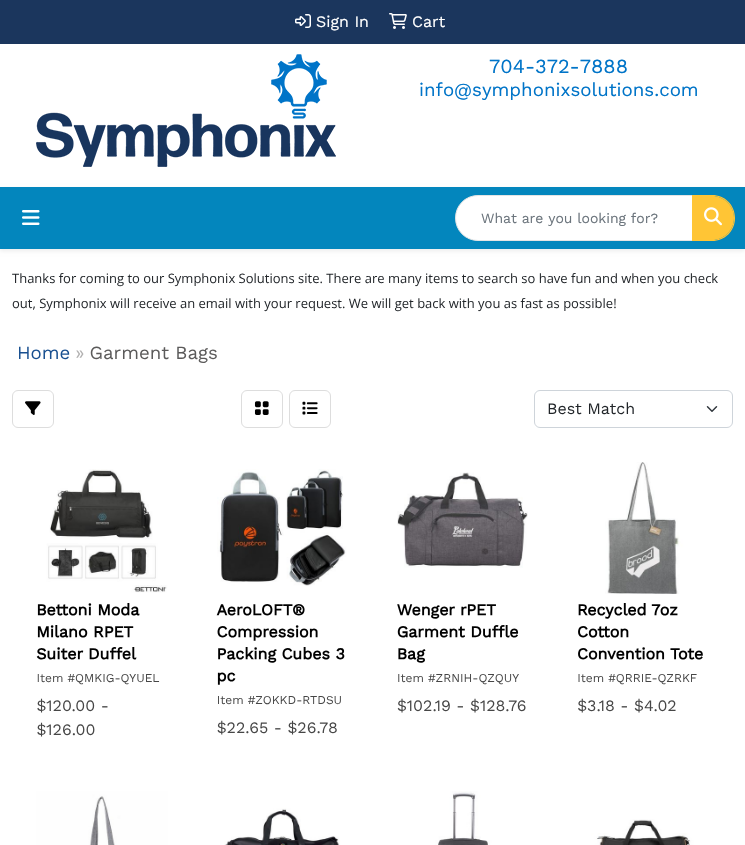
void draw(SkCanvas* canvas) {
  SkPaint paint;
  paint.setAntiAlias(true);
  auto face = [&](const char* family, int weight, float size, bool italic = false) {
    SkFontStyle style(weight, SkFontStyle::kNormal_Width,
      italic ? SkFontStyle::kItalic_Slant : SkFontStyle::kUpright_Slant);
    SkFont result(fontMgr->matchFamilyStyle(family, style), size);
    result.setSubpixel(true);
    return result;
  };
  auto paste = [&](const char* path, float x, float y, float w, float h) {
    auto image = SkImages::DeferredFromEncodedData(SkData::MakeFromFileName(path));
    canvas->drawImageRect(image, SkRect::MakeXYWH(x, y, w, h), SkSamplingOptions());
  };
  auto shape = [&](const char* data, bool evenOdd = false) {
    SkPath result = *SkParsePath::FromSVGString(data);
    if (evenOdd) result.setFillType(SkPathFillType::kEvenOdd);
    return result;
  };
  canvas->clear(0xffffffff);
  paint.setColor(0xff1b365d);
  canvas->drawRect(SkRect::MakeXYWH(0, 0, 745, 44), paint);
  paste("img/1.png", 295, 14, 16, 14);
  paste("img/2.png", 389, 13, 18, 16);
  paste("img/3.png", 36, 54, 300, 113);
  paint.setColor(0x12000000);
  paint.setMaskFilter(SkMaskFilter::MakeBlur(kNormal_SkBlurStyle, 2));
  canvas->drawRect(SkRect::MakeXYWH(0, 189, 745, 62), paint);
  paint.setMaskFilter(nullptr);
  paint.setColor(0xff0386bd);
  canvas->drawRect(SkRect::MakeXYWH(0, 187, 745, 62), paint);
  paste("img/4.png", 22, 210, 18, 15);
  paint.setColor(0xffffffff);
  canvas->drawPath(shape("M478 195.5H692.5V240.5H478C465.5 240.5 455.5 230.5 455.5 218C455.5 205.5 465.5 195.5 478 195.5Z"), paint);
  paint.setStroke(true);
  paint.setStrokeWidth(1);
  paint.setColor(0xffe4e4e4);
  canvas->drawPath(shape("M478 195.5H692.5V240.5H478C465.5 240.5 455.5 230.5 455.5 218C455.5 205.5 465.5 195.5 478 195.5Z"), paint);
  paint.setStroke(false);
  paint.setColor(0xffffc535);
  canvas->drawPath(shape("M692 196H712C724 196 734 206 734 218C734 230 724 240 712 240H692Z"), paint);
  canvas->drawPath(shape("M692 195H712C725 195 735 205 735 218C735 231 725 241 712 241H692ZM692 196H712C724 196 734 206 734 218C734 230 724 240 712 240H692Z", true), paint);
  paste("img/5.png", 704, 207, 18, 19);
  paste("img/6.png", 12, 273, 721, 572);
  auto f0 = face("Work Sans", 400, 16);
  paint.setColor(0xffffffff);
  canvas->drawString("Sign In", 316, 27, f0, paint);
  canvas->drawString("Cart", 412, 27, f0, paint);
  auto f1 = face("Work Sans", 400, 20);
  paint.setColor(0xff0074c8);
  canvas->drawString("704-372-7888", 489, 73, f1, paint);
  auto f2 = face("Work Sans", 400, 18.7f);
  canvas->drawString("info@symphonixsolutions.com", 419, 96, f2, paint);
  auto f3 = face("Work Sans", 400, 14);
  paint.setColor(0xff6c757d);
  canvas->drawString("What are you looking for?", 481, 223, f3, paint);
}
